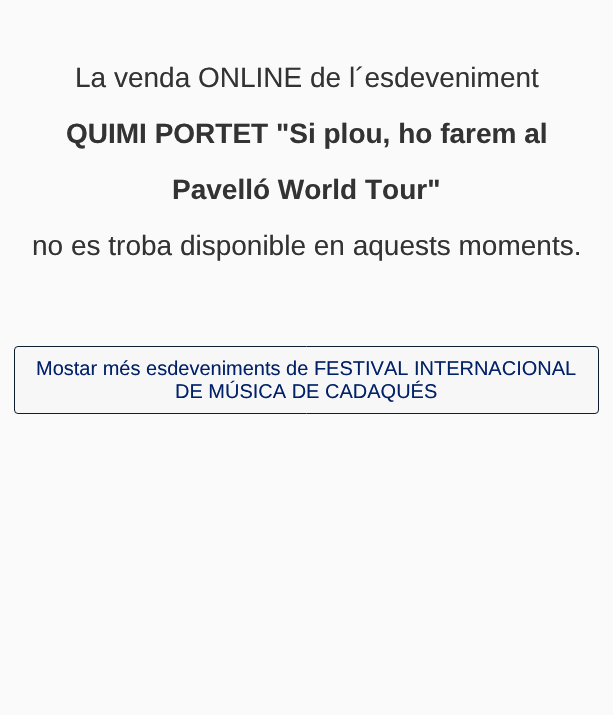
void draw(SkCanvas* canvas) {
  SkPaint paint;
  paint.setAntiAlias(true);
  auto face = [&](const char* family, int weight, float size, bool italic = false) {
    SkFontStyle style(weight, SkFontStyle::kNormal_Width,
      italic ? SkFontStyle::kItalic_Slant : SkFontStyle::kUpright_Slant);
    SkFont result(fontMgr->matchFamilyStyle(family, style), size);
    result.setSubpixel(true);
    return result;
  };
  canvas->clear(0xfffafafa);
  paint.setColor(0xfff7f7f7);
  canvas->drawRoundRect(SkRect::MakeXYWH(14.5f, 346.5f, 584, 67), 3.5f, 3.5f, paint);
  paint.setStroke(true);
  paint.setStrokeWidth(1);
  paint.setColor(0xff0f1d30);
  canvas->drawRoundRect(SkRect::MakeXYWH(14.5f, 346.5f, 584, 67), 3.5f, 3.5f, paint);
  auto f0 = face("Liberation Sans", 400, 28);
  paint.setStroke(false);
  paint.setColor(0xff333333);
  canvas->drawString("La venda ONLINE de l´esdeveniment", 75, 87, f0, paint);
  auto f1 = face("Liberation Sans", 700, 28);
  canvas->drawString("QUIMI PORTET \"Si plou, ho farem al", 66, 143, f1, paint);
  canvas->drawString("Pavelló World Tour\"", 172, 199, f1, paint);
  canvas->drawString("no es troba disponible en aquests moments.", 32, 255, f0, paint);
  auto f2 = face("Liberation Sans", 400, 20);
  paint.setColor(0xff012169);
  canvas->drawString("Mostar més esdeveniments de FESTIVAL INTERNACIONAL", 36, 375, f2, paint);
  canvas->drawString("DE MÚSICA DE CADAQUÉS", 175, 398, f2, paint);
}
